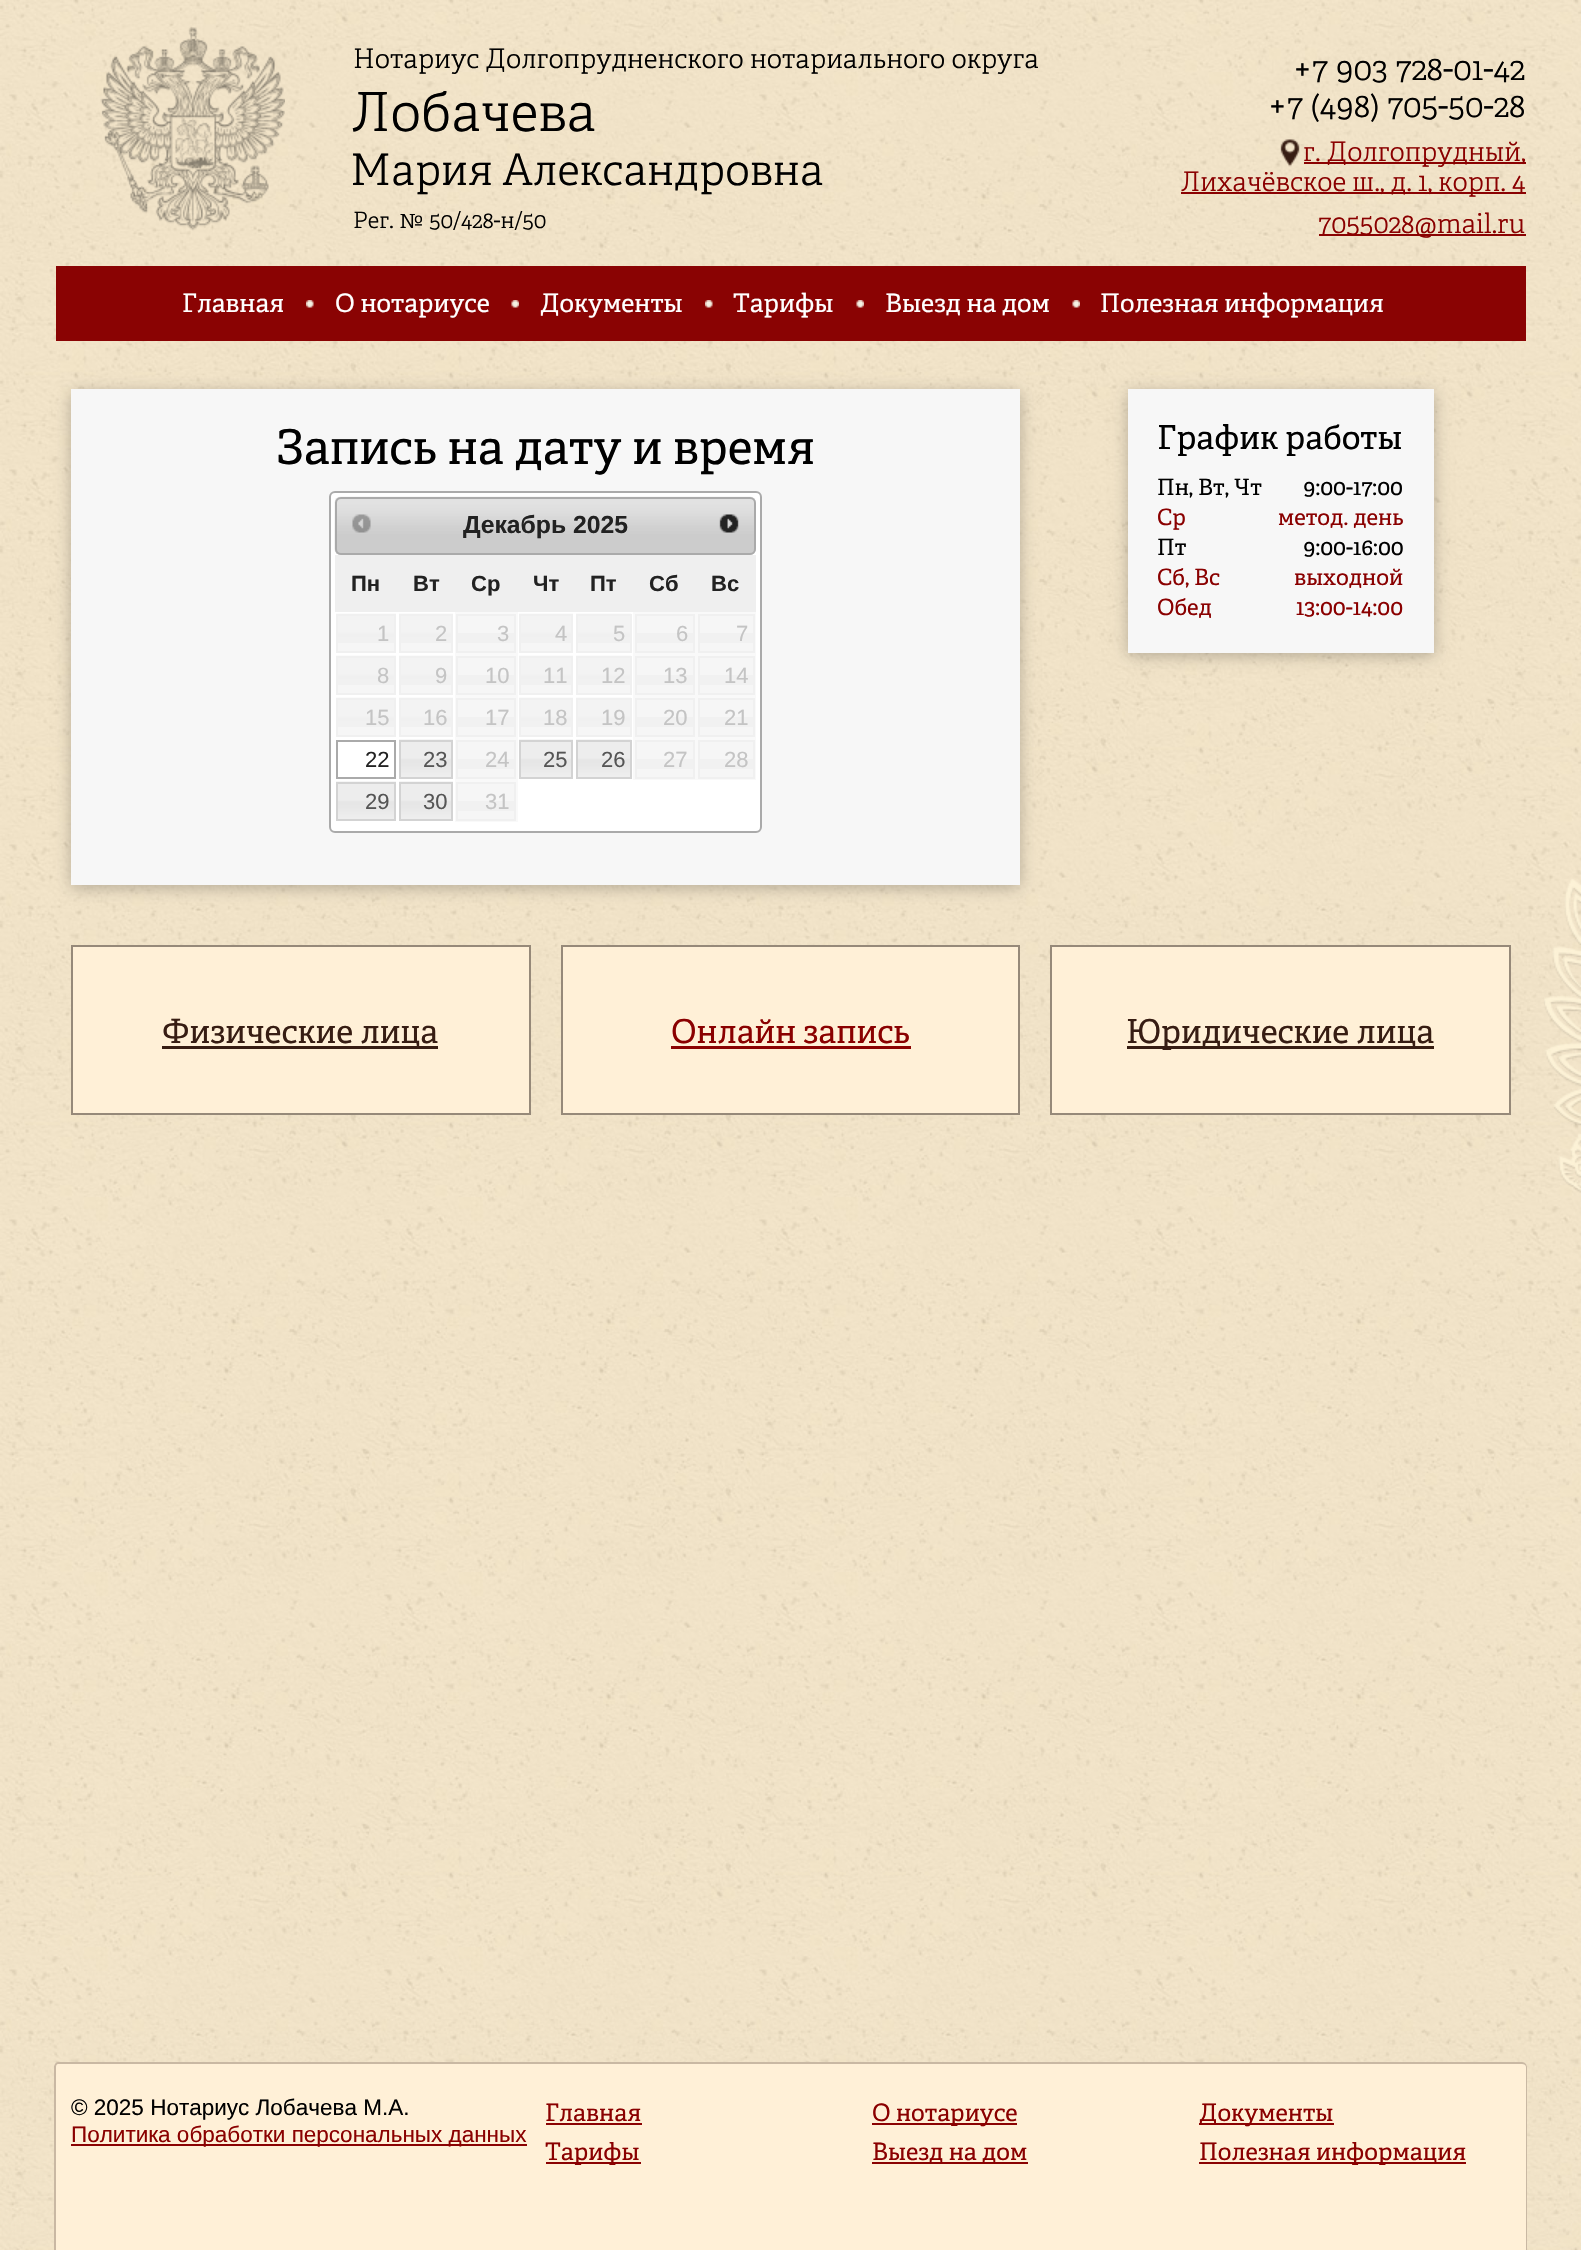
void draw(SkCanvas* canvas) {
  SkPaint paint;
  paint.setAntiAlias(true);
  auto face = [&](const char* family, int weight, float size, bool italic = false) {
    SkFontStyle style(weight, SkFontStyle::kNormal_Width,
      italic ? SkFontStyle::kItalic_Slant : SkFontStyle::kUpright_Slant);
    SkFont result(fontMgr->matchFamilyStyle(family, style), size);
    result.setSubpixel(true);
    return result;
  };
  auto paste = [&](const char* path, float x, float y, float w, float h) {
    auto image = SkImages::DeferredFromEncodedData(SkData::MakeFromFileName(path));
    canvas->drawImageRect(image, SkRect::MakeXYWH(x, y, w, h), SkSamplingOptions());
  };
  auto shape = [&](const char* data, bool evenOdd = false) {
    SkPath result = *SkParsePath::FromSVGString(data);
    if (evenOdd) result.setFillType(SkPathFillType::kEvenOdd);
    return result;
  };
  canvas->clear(0xffffffff);
  paste("img/1.png", 0, 0, 1581, 2250);
  paste("img/2.png", 1544, 879, 37, 314);
  paste("img/3.png", 100, 27, 185, 204);
  paste("img/4.png", 1280, 139, 20, 28);
  {
    const struct { float x, y, w, h; SkColor color; } items[] = {
      {1304, 162, 222, 2, 0xff8a0202},
      {1181, 192, 345, 2, 0xff8a0202},
      {1319, 234, 207, 2, 0xff8a0202},
      {56, 266, 1470, 75, 0xff8a0303},
    };
    for (auto [x, y, w, h, color] : items) {
      paint.setColor(color);
      canvas->drawRect(SkRect::MakeXYWH(x, y, w, h), paint);
    }
  }
  paste("img/5.png", 306, 300, 8, 8);
  paste("img/6.png", 511, 300, 8, 8);
  paste("img/5.png", 705, 300, 8, 8);
  paste("img/7.png", 856, 300, 8, 8);
  paste("img/7.png", 1072, 300, 8, 8);
  paint.setColor(0x40000000);
  paint.setMaskFilter(SkMaskFilter::MakeBlur(kNormal_SkBlurStyle, 7.5f));
  canvas->drawRect(SkRect::MakeXYWH(71, 392, 949, 496), paint);
  paint.setMaskFilter(nullptr);
  paint.setColor(0xfff7f7f7);
  canvas->drawRect(SkRect::MakeXYWH(71, 389, 949, 496), paint);
  paint.setColor(0xffffffff);
  canvas->drawRoundRect(SkRect::MakeXYWH(330, 492, 431, 340), 5, 5, paint);
  paint.setStroke(true);
  paint.setStrokeWidth(2);
  paint.setColor(0xffaaaaaa);
  canvas->drawRoundRect(SkRect::MakeXYWH(330, 492, 431, 340), 5, 5, paint);
  paste("img/8.png", 334, 496, 422, 59);
  canvas->drawRoundRect(SkRect::MakeXYWH(336, 498, 419, 56), 5, 5, paint);
  paste("img/9.png", 352, 514, 19, 19);
  paste("img/10.png", 719, 514, 20, 19);
  paint.setStroke(false);
  paint.setColor(0xffefefef);
  canvas->drawRect(SkRect::MakeXYWH(335, 555, 421, 57), paint);
  paint.setColor(0xfff6f6f6);
  canvas->drawRect(SkRect::MakeXYWH(338, 616, 56, 35), paint);
  paste("img/11.png", 336, 613, 60, 30);
  paint.setStroke(true);
  paint.setColor(0xfff0f0f0);
  canvas->drawRect(SkRect::MakeXYWH(337, 615, 58, 37), paint);
  paint.setStroke(false);
  paint.setColor(0xfff6f6f6);
  canvas->drawRect(SkRect::MakeXYWH(401, 616, 50, 35), paint);
  paste("img/12.png", 399, 613, 54, 30);
  paint.setStroke(true);
  paint.setColor(0xfff0f0f0);
  canvas->drawRect(SkRect::MakeXYWH(400, 615, 52, 37), paint);
  paint.setStroke(false);
  {
    const struct { float x, y, w, h; SkColor color; } items[] = {
      {455, 612, 63, 210, 0xfff9f9f9},
      {458, 616, 56, 35, 0xfff6f6f6},
      {458, 633, 56, 10, 0xfff1f1f1},
    };
    for (auto [x, y, w, h, color] : items) {
      paint.setColor(color);
      canvas->drawRect(SkRect::MakeXYWH(x, y, w, h), paint);
    }
  }
  paint.setStroke(true);
  paint.setColor(0xfff0f0f0);
  canvas->drawRect(SkRect::MakeXYWH(457, 615, 58, 37), paint);
  paint.setStroke(false);
  paint.setColor(0xfff6f6f6);
  canvas->drawRect(SkRect::MakeXYWH(521, 616, 50, 35), paint);
  paste("img/12.png", 519, 613, 54, 30);
  paint.setStroke(true);
  paint.setColor(0xfff0f0f0);
  canvas->drawRect(SkRect::MakeXYWH(520, 615, 52, 37), paint);
  paint.setStroke(false);
  paint.setColor(0xfff6f6f6);
  canvas->drawRect(SkRect::MakeXYWH(578, 616, 52, 35), paint);
  paste("img/13.png", 576, 613, 55, 30);
  paint.setStroke(true);
  paint.setColor(0xfff0f0f0);
  canvas->drawRect(SkRect::MakeXYWH(577, 615, 54, 37), paint);
  paint.setStroke(false);
  {
    const struct { float x, y, w, h; SkColor color; } items[] = {
      {633, 612, 123, 42, 0xfff9f9f9},
      {637, 616, 56, 35, 0xfff6f6f6},
      {637, 633, 56, 10, 0xfff1f1f1},
    };
    for (auto [x, y, w, h, color] : items) {
      paint.setColor(color);
      canvas->drawRect(SkRect::MakeXYWH(x, y, w, h), paint);
    }
  }
  paint.setStroke(true);
  paint.setColor(0xfff0f0f0);
  canvas->drawRect(SkRect::MakeXYWH(636, 615, 58, 37), paint);
  paint.setStroke(false);
  paint.setColor(0xfff6f6f6);
  canvas->drawRect(SkRect::MakeXYWH(700, 616, 53, 35), paint);
  paint.setColor(0xfff1f1f1);
  canvas->drawRect(SkRect::MakeXYWH(700, 633, 53, 10), paint);
  paint.setStroke(true);
  paint.setColor(0xfff0f0f0);
  canvas->drawRect(SkRect::MakeXYWH(699, 615, 55, 37), paint);
  paint.setStroke(false);
  paint.setColor(0xfff6f6f6);
  canvas->drawRect(SkRect::MakeXYWH(338, 658, 56, 35), paint);
  paste("img/11.png", 336, 655, 60, 30);
  paint.setStroke(true);
  paint.setColor(0xfff0f0f0);
  canvas->drawRect(SkRect::MakeXYWH(337, 657, 58, 37), paint);
  paint.setStroke(false);
  paint.setColor(0xfff6f6f6);
  canvas->drawRect(SkRect::MakeXYWH(401, 658, 50, 35), paint);
  paste("img/12.png", 399, 655, 54, 30);
  paint.setStroke(true);
  paint.setColor(0xfff0f0f0);
  canvas->drawRect(SkRect::MakeXYWH(400, 657, 52, 37), paint);
  paint.setStroke(false);
  paint.setColor(0xfff6f6f6);
  canvas->drawRect(SkRect::MakeXYWH(458, 658, 56, 35), paint);
  paint.setColor(0xfff1f1f1);
  canvas->drawRect(SkRect::MakeXYWH(458, 675, 56, 10), paint);
  paint.setStroke(true);
  paint.setColor(0xfff0f0f0);
  canvas->drawRect(SkRect::MakeXYWH(457, 657, 58, 37), paint);
  paint.setStroke(false);
  paint.setColor(0xfff6f6f6);
  canvas->drawRect(SkRect::MakeXYWH(521, 658, 50, 35), paint);
  paste("img/12.png", 519, 655, 54, 30);
  paint.setStroke(true);
  paint.setColor(0xfff0f0f0);
  canvas->drawRect(SkRect::MakeXYWH(520, 657, 52, 37), paint);
  paint.setStroke(false);
  paint.setColor(0xfff6f6f6);
  canvas->drawRect(SkRect::MakeXYWH(578, 658, 52, 35), paint);
  paste("img/13.png", 576, 655, 55, 30);
  paint.setStroke(true);
  paint.setColor(0xfff0f0f0);
  canvas->drawRect(SkRect::MakeXYWH(577, 657, 54, 37), paint);
  paint.setStroke(false);
  {
    const struct { float x, y, w, h; SkColor color; } items[] = {
      {633, 654, 123, 42, 0xfff9f9f9},
      {637, 658, 56, 35, 0xfff6f6f6},
      {637, 675, 56, 10, 0xfff1f1f1},
    };
    for (auto [x, y, w, h, color] : items) {
      paint.setColor(color);
      canvas->drawRect(SkRect::MakeXYWH(x, y, w, h), paint);
    }
  }
  paint.setStroke(true);
  paint.setColor(0xfff0f0f0);
  canvas->drawRect(SkRect::MakeXYWH(636, 657, 58, 37), paint);
  paint.setStroke(false);
  paint.setColor(0xfff6f6f6);
  canvas->drawRect(SkRect::MakeXYWH(700, 658, 53, 35), paint);
  paint.setColor(0xfff1f1f1);
  canvas->drawRect(SkRect::MakeXYWH(700, 675, 53, 10), paint);
  paint.setStroke(true);
  paint.setColor(0xfff0f0f0);
  canvas->drawRect(SkRect::MakeXYWH(699, 657, 55, 37), paint);
  paint.setStroke(false);
  paint.setColor(0xfff6f6f6);
  canvas->drawRect(SkRect::MakeXYWH(338, 700, 56, 35), paint);
  paste("img/11.png", 336, 697, 60, 30);
  paint.setStroke(true);
  paint.setColor(0xfff0f0f0);
  canvas->drawRect(SkRect::MakeXYWH(337, 699, 58, 37), paint);
  paint.setStroke(false);
  paint.setColor(0xfff6f6f6);
  canvas->drawRect(SkRect::MakeXYWH(401, 700, 50, 35), paint);
  paste("img/12.png", 399, 697, 54, 30);
  paint.setStroke(true);
  paint.setColor(0xfff0f0f0);
  canvas->drawRect(SkRect::MakeXYWH(400, 699, 52, 37), paint);
  paint.setStroke(false);
  paint.setColor(0xfff6f6f6);
  canvas->drawRect(SkRect::MakeXYWH(458, 700, 56, 35), paint);
  paint.setColor(0xfff1f1f1);
  canvas->drawRect(SkRect::MakeXYWH(458, 717, 56, 10), paint);
  paint.setStroke(true);
  paint.setColor(0xfff0f0f0);
  canvas->drawRect(SkRect::MakeXYWH(457, 699, 58, 37), paint);
  paint.setStroke(false);
  paint.setColor(0xfff6f6f6);
  canvas->drawRect(SkRect::MakeXYWH(521, 700, 50, 35), paint);
  paste("img/12.png", 519, 697, 54, 30);
  paint.setStroke(true);
  paint.setColor(0xfff0f0f0);
  canvas->drawRect(SkRect::MakeXYWH(520, 699, 52, 37), paint);
  paint.setStroke(false);
  paint.setColor(0xfff6f6f6);
  canvas->drawRect(SkRect::MakeXYWH(578, 700, 52, 35), paint);
  paste("img/13.png", 576, 697, 55, 30);
  paint.setStroke(true);
  paint.setColor(0xfff0f0f0);
  canvas->drawRect(SkRect::MakeXYWH(577, 699, 54, 37), paint);
  paint.setStroke(false);
  {
    const struct { float x, y, w, h; SkColor color; } items[] = {
      {633, 696, 123, 42, 0xfff9f9f9},
      {637, 700, 56, 35, 0xfff6f6f6},
      {637, 717, 56, 10, 0xfff1f1f1},
    };
    for (auto [x, y, w, h, color] : items) {
      paint.setColor(color);
      canvas->drawRect(SkRect::MakeXYWH(x, y, w, h), paint);
    }
  }
  paint.setStroke(true);
  paint.setColor(0xfff0f0f0);
  canvas->drawRect(SkRect::MakeXYWH(636, 699, 58, 37), paint);
  paint.setStroke(false);
  paint.setColor(0xfff6f6f6);
  canvas->drawRect(SkRect::MakeXYWH(700, 700, 53, 35), paint);
  paint.setColor(0xfff1f1f1);
  canvas->drawRect(SkRect::MakeXYWH(700, 717, 53, 10), paint);
  paint.setStroke(true);
  paint.setColor(0xfff0f0f0);
  canvas->drawRect(SkRect::MakeXYWH(699, 699, 55, 37), paint);
  paint.setColor(0xffaaaaaa);
  canvas->drawRect(SkRect::MakeXYWH(337, 741, 58, 37), paint);
  paste("img/14.png", 399, 739, 54, 38);
  paint.setColor(0xffd3d3d3);
  canvas->drawRect(SkRect::MakeXYWH(400, 741, 52, 37), paint);
  paint.setStroke(false);
  paint.setColor(0xfff6f6f6);
  canvas->drawRect(SkRect::MakeXYWH(458, 742, 56, 35), paint);
  paint.setColor(0xfff1f1f1);
  canvas->drawRect(SkRect::MakeXYWH(458, 759, 56, 10), paint);
  paint.setStroke(true);
  paint.setColor(0xfff0f0f0);
  canvas->drawRect(SkRect::MakeXYWH(457, 741, 58, 37), paint);
  paste("img/14.png", 519, 739, 54, 38);
  paint.setColor(0xffd3d3d3);
  canvas->drawRect(SkRect::MakeXYWH(520, 741, 52, 37), paint);
  paste("img/15.png", 576, 739, 56, 38);
  canvas->drawRect(SkRect::MakeXYWH(577, 741, 54, 37), paint);
  paint.setStroke(false);
  {
    const struct { float x, y, w, h; SkColor color; } items[] = {
      {633, 738, 123, 42, 0xfff9f9f9},
      {637, 742, 56, 35, 0xfff6f6f6},
      {637, 759, 56, 10, 0xfff1f1f1},
    };
    for (auto [x, y, w, h, color] : items) {
      paint.setColor(color);
      canvas->drawRect(SkRect::MakeXYWH(x, y, w, h), paint);
    }
  }
  paint.setStroke(true);
  paint.setColor(0xfff0f0f0);
  canvas->drawRect(SkRect::MakeXYWH(636, 741, 58, 37), paint);
  paint.setStroke(false);
  paint.setColor(0xfff6f6f6);
  canvas->drawRect(SkRect::MakeXYWH(700, 742, 53, 35), paint);
  paint.setColor(0xfff1f1f1);
  canvas->drawRect(SkRect::MakeXYWH(700, 759, 53, 10), paint);
  paint.setStroke(true);
  paint.setColor(0xfff0f0f0);
  canvas->drawRect(SkRect::MakeXYWH(699, 741, 55, 37), paint);
  paste("img/16.png", 336, 781, 60, 38);
  paint.setColor(0xffd3d3d3);
  canvas->drawRect(SkRect::MakeXYWH(337, 783, 58, 37), paint);
  paste("img/14.png", 399, 781, 54, 38);
  canvas->drawRect(SkRect::MakeXYWH(400, 783, 52, 37), paint);
  paint.setStroke(false);
  paint.setColor(0xfff6f6f6);
  canvas->drawRect(SkRect::MakeXYWH(458, 784, 56, 35), paint);
  paint.setColor(0xfff1f1f1);
  canvas->drawRect(SkRect::MakeXYWH(458, 801, 56, 10), paint);
  paint.setStroke(true);
  paint.setColor(0xfff0f0f0);
  canvas->drawRect(SkRect::MakeXYWH(457, 783, 58, 37), paint);
  paint.setStroke(false);
  paint.setColor(0x40000000);
  paint.setMaskFilter(SkMaskFilter::MakeBlur(kNormal_SkBlurStyle, 7.5f));
  canvas->drawRect(SkRect::MakeXYWH(1128, 392, 306, 264), paint);
  paint.setMaskFilter(nullptr);
  paint.setColor(0xfff7f7f7);
  canvas->drawRect(SkRect::MakeXYWH(1128, 389, 306, 264), paint);
  paint.setColor(0xfffff0d7);
  canvas->drawRect(SkRect::MakeXYWH(72, 946, 458, 168), paint);
  paint.setStroke(true);
  paint.setColor(0xff968979);
  canvas->drawRect(SkRect::MakeXYWH(72, 946, 458, 168), paint);
  paint.setStroke(false);
  paint.setColor(0xff371d13);
  canvas->drawRect(SkRect::MakeXYWH(162, 1046, 276, 3), paint);
  paint.setColor(0xfffff0d7);
  canvas->drawRect(SkRect::MakeXYWH(562, 946, 457, 168), paint);
  paint.setStroke(true);
  paint.setColor(0xff968979);
  canvas->drawRect(SkRect::MakeXYWH(562, 946, 457, 168), paint);
  paint.setStroke(false);
  paint.setColor(0xff8b0202);
  canvas->drawRect(SkRect::MakeXYWH(671, 1046, 240, 3), paint);
  paint.setColor(0xfffff0d7);
  canvas->drawRect(SkRect::MakeXYWH(1051, 946, 459, 168), paint);
  paint.setStroke(true);
  paint.setColor(0xff968979);
  canvas->drawRect(SkRect::MakeXYWH(1051, 946, 459, 168), paint);
  paint.setStroke(false);
  paint.setColor(0xff371d13);
  canvas->drawRect(SkRect::MakeXYWH(1127, 1046, 307, 3), paint);
  paint.setColor(0xfffff0d7);
  canvas->drawPath(shape("M59 2063H1522C1525 2063 1527 2065 1527 2068V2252H54V2068C54 2065 56 2063 59 2063Z"), paint);
  paint.setColor(0xffc9b8a3);
  canvas->drawPath(shape("M58 2062H1522C1525 2062 1527 2065 1527 2067V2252H54V2067C54 2065 56 2062 58 2062ZM58 2064H1522C1524 2064 1526 2065 1526 2067V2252H56V2067C56 2065 57 2064 58 2064Z", true), paint);
  {
    const struct { float x, y, w, h; SkColor color; } items[] = {
      {71, 2144, 456, 2, 0xff8a0202},
      {546, 2123, 96, 2, 0xff8a0202},
      {872, 2123, 145, 2, 0xff8a0202},
      {1199, 2123, 135, 2, 0xff8a0202},
      {546, 2162, 95, 2, 0xff8a0202},
      {872, 2162, 156, 2, 0xff8a0202},
      {1199, 2162, 267, 2, 0xff8a0202},
    };
    for (auto [x, y, w, h, color] : items) {
      paint.setColor(color);
      canvas->drawRect(SkRect::MakeXYWH(x, y, w, h), paint);
    }
  }
  auto f0 = face("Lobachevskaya", 300, 27);
  paint.setColor(0xff000000);
  canvas->drawString("Нотариус Долгопрудненского нотариального округа", 353, 68, f0, paint);
  auto f1 = face("Lobachevskaya", 300, 54);
  canvas->drawString("Лобачева", 350, 131, f1, paint);
  auto f2 = face("Lobachevskaya", 300, 43.5f);
  canvas->drawString("Мария Александровна", 350, 185, f2, paint);
  auto f3 = face("Lobachevskaya", 300, 22.5f);
  canvas->drawString("Рег. № 50/428-н/50", 353, 228, f3, paint);
  auto f4 = face("Lobachevskaya", 300, 33);
  canvas->drawString("+7 903 728-01-42", 1293, 80, f4, paint);
  canvas->drawString("+7 (498) 705-50-28", 1268, 117, f4, paint);
  paint.setColor(0xff8a0000);
  {
    const struct { const char* s; float x, y; } items[] = {
      {"г. Долгопрудный,", 1303, 161},
      {"Лихачёвское ш., д. 1, корп. 4", 1180, 191},
      {"7055028@mail.ru", 1318, 233},
    };
    for (auto [s, x, y] : items) {
      canvas->drawString(s, x, y, f0, paint);
    }
  }
  auto f5 = face("Lobachevskaya", 400, 25.5f);
  paint.setColor(0xffffffff);
  {
    const struct { const char* s; float x, y; } items[] = {
      {"Главная", 182, 312},
      {"О нотариусе", 335, 312},
      {"Документы", 540, 312},
      {"Тарифы", 733, 312},
      {"Выезд на дом", 885, 312},
      {"Полезная информация", 1100, 312},
    };
    for (auto [s, x, y] : items) {
      canvas->drawString(s, x, y, f5, paint);
    }
  }
  auto f6 = face("Lobachevskaya", 400, 48);
  paint.setColor(0xff000000);
  canvas->drawString("Запись на дату и время", 276, 464, f6, paint);
  auto f7 = face("Liberation Sans", 700, 24.75f);
  paint.setColor(0xff222222);
  canvas->drawString("Декабрь 2025", 463, 533, f7, paint);
  auto f8 = face("Liberation Sans", 700, 22);
  {
    const struct { const char* s; float x, y; } items[] = {
      {"Пн", 351, 591},
      {"Вт", 413, 591},
      {"Ср", 471, 591},
      {"Чт", 533, 591},
      {"Пт", 590, 591},
      {"Сб", 649, 591},
      {"Вс", 711, 591},
    };
    for (auto [s, x, y] : items) {
      canvas->drawString(s, x, y, f8, paint);
    }
  }
  auto f9 = face("Liberation Sans", 400, 22);
  paint.setColor(0xffc4c4c4);
  {
    const struct { const char* s; float x, y; } items[] = {
      {"1", 377, 641},
      {"2", 435, 641},
      {"3", 497, 641},
      {"4", 555, 641},
      {"5", 613, 641},
      {"6", 676, 641},
      {"7", 736, 641},
      {"8", 377, 683},
      {"9", 435, 683},
      {"10", 485, 683},
      {"11", 543, 683},
      {"12", 601, 683},
      {"13", 663, 683},
      {"14", 724, 683},
      {"15", 365, 725},
      {"16", 423, 725},
      {"17", 485, 725},
      {"18", 543, 725},
      {"19", 601, 725},
      {"20", 663, 725},
      {"21", 724, 725},
    };
    for (auto [s, x, y] : items) {
      canvas->drawString(s, x, y, f9, paint);
    }
  }
  paint.setColor(0xff222222);
  canvas->drawString("22", 365, 767, f9, paint);
  paint.setColor(0xff555555);
  canvas->drawString("23", 423, 767, f9, paint);
  paint.setColor(0xffc4c4c4);
  canvas->drawString("24", 485, 767, f9, paint);
  paint.setColor(0xff555555);
  canvas->drawString("25", 543, 767, f9, paint);
  canvas->drawString("26", 601, 767, f9, paint);
  paint.setColor(0xffc4c4c4);
  canvas->drawString("27", 663, 767, f9, paint);
  canvas->drawString("28", 724, 767, f9, paint);
  paint.setColor(0xff555555);
  canvas->drawString("29", 365, 809, f9, paint);
  canvas->drawString("30", 423, 809, f9, paint);
  paint.setColor(0xffc4c4c4);
  canvas->drawString("31", 485, 809, f9, paint);
  auto f10 = face("Lobachevskaya", 400, 33);
  paint.setColor(0xff000000);
  canvas->drawString("График работы", 1157, 449, f10, paint);
  auto f11 = face("Lobachevskaya", 400, 22.5f);
  canvas->drawString("Пн, Вт, Чт", 1157, 495, f11, paint);
  canvas->drawString("9:00-17:00", 1303, 495, f11, paint);
  paint.setColor(0xff8a0000);
  canvas->drawString("Ср", 1157, 525, f11, paint);
  canvas->drawString("метод. день", 1278, 525, f11, paint);
  paint.setColor(0xff000000);
  canvas->drawString("Пт", 1157, 555, f11, paint);
  canvas->drawString("9:00-16:00", 1303, 555, f11, paint);
  paint.setColor(0xff8a0000);
  {
    const struct { const char* s; float x, y; } items[] = {
      {"Сб, Вс", 1157, 585},
      {"выходной", 1294, 585},
      {"Обед", 1157, 615},
      {"13:00-14:00", 1296, 615},
    };
    for (auto [s, x, y] : items) {
      canvas->drawString(s, x, y, f11, paint);
    }
  }
  paint.setColor(0xff371d13);
  canvas->drawString("Физические лица", 162, 1043, f10, paint);
  paint.setColor(0xff8a0000);
  canvas->drawString("Онлайн запись", 671, 1043, f10, paint);
  paint.setColor(0xff371d13);
  canvas->drawString("Юридические лица", 1126, 1043, f10, paint);
  auto f12 = face("Liberation Sans", 400, 22.5f);
  paint.setColor(0xff000000);
  canvas->drawString("© 2025 Нотариус Лобачева М.А.", 71, 2115, f12, paint);
  paint.setColor(0xff8a0000);
  canvas->drawString("Политика обработки персональных данных", 71, 2142, f12, paint);
  auto f13 = face("Lobachevskaya", 400, 24);
  {
    const struct { const char* s; float x, y; } items[] = {
      {"Главная", 545, 2121},
      {"О нотариусе", 872, 2121},
      {"Документы", 1199, 2121},
      {"Тарифы", 545, 2160},
      {"Выезд на дом", 872, 2160},
      {"Полезная информация", 1199, 2160},
    };
    for (auto [s, x, y] : items) {
      canvas->drawString(s, x, y, f13, paint);
    }
  }
}
